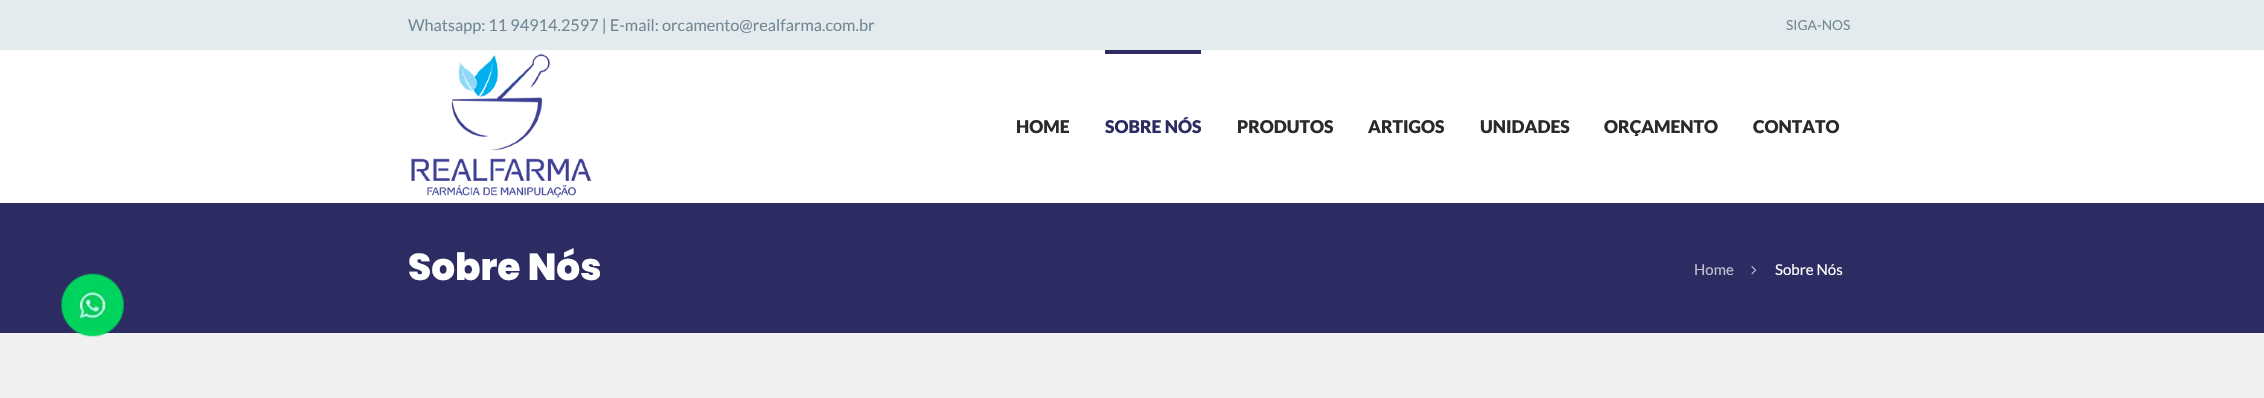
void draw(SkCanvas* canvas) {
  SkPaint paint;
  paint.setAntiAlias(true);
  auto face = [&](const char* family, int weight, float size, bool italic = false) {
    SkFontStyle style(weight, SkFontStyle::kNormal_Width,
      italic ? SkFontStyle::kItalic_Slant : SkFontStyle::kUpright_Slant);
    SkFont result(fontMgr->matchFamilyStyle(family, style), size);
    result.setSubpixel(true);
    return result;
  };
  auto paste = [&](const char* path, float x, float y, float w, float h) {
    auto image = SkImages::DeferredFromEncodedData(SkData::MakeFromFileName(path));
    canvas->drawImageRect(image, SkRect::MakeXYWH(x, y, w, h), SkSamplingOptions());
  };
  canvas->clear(0xffffffff);
  paint.setColor(0xffe4ebef);
  canvas->drawRect(SkRect::MakeXYWH(0, 0, 2264, 50), paint);
  paste("img/1.png", 411, 54, 181, 145);
  paint.setColor(0xff2c2c62);
  canvas->drawRect(SkRect::MakeXYWH(1105, 50, 96, 4), paint);
  canvas->drawRect(SkRect::MakeXYWH(0, 203, 2264, 130), paint);
  paste("img/2.png", 1751, 266, 6, 9);
  paint.setColor(0xfff0f0f0);
  canvas->drawRect(SkRect::MakeXYWH(0, 333, 2264, 65), paint);
  paste("img/3.png", 61, 273, 63, 64);
  auto f0 = face("Lato", 400, 16.25f);
  paint.setColor(0xff718895);
  canvas->drawString("Whatsapp: 11 94914.2597 | E-mail: orcamento@realfarma.com.br", 408, 31, f0, paint);
  auto f1 = face("Lato", 400, 13.75f);
  canvas->drawString("SIGA-NOS", 1786, 30, f1, paint);
  auto f2 = face("Lato", 900, 17.5f);
  paint.setColor(0xff2a2a2a);
  canvas->drawString("HOME", 1016, 133, f2, paint);
  paint.setColor(0xff2c2c62);
  canvas->drawString("SOBRE NÓS", 1105, 133, f2, paint);
  paint.setColor(0xff2a2a2a);
  {
    const struct { const char* s; float x, y; } items[] = {
      {"PRODUTOS", 1237, 133},
      {"ARTIGOS", 1368, 133},
      {"UNIDADES", 1480, 133},
      {"ORÇAMENTO", 1604, 133},
      {"CONTATO", 1753, 133},
    };
    for (auto [s, x, y] : items) {
      canvas->drawString(s, x, y, f2, paint);
    }
  }
  auto f3 = face("Poppins", 800, 37.5f);
  paint.setColor(0xffffffff);
  canvas->drawString("Sobre Nós", 408, 280, f3, paint);
  auto f4 = face("Lato", 400, 15);
  paint.setColor(0xffc0c0d0);
  canvas->drawString("Home", 1694, 275, f4, paint);
  paint.setColor(0xffffffff);
  canvas->drawString("Sobre Nós", 1775, 275, f4, paint);
}
